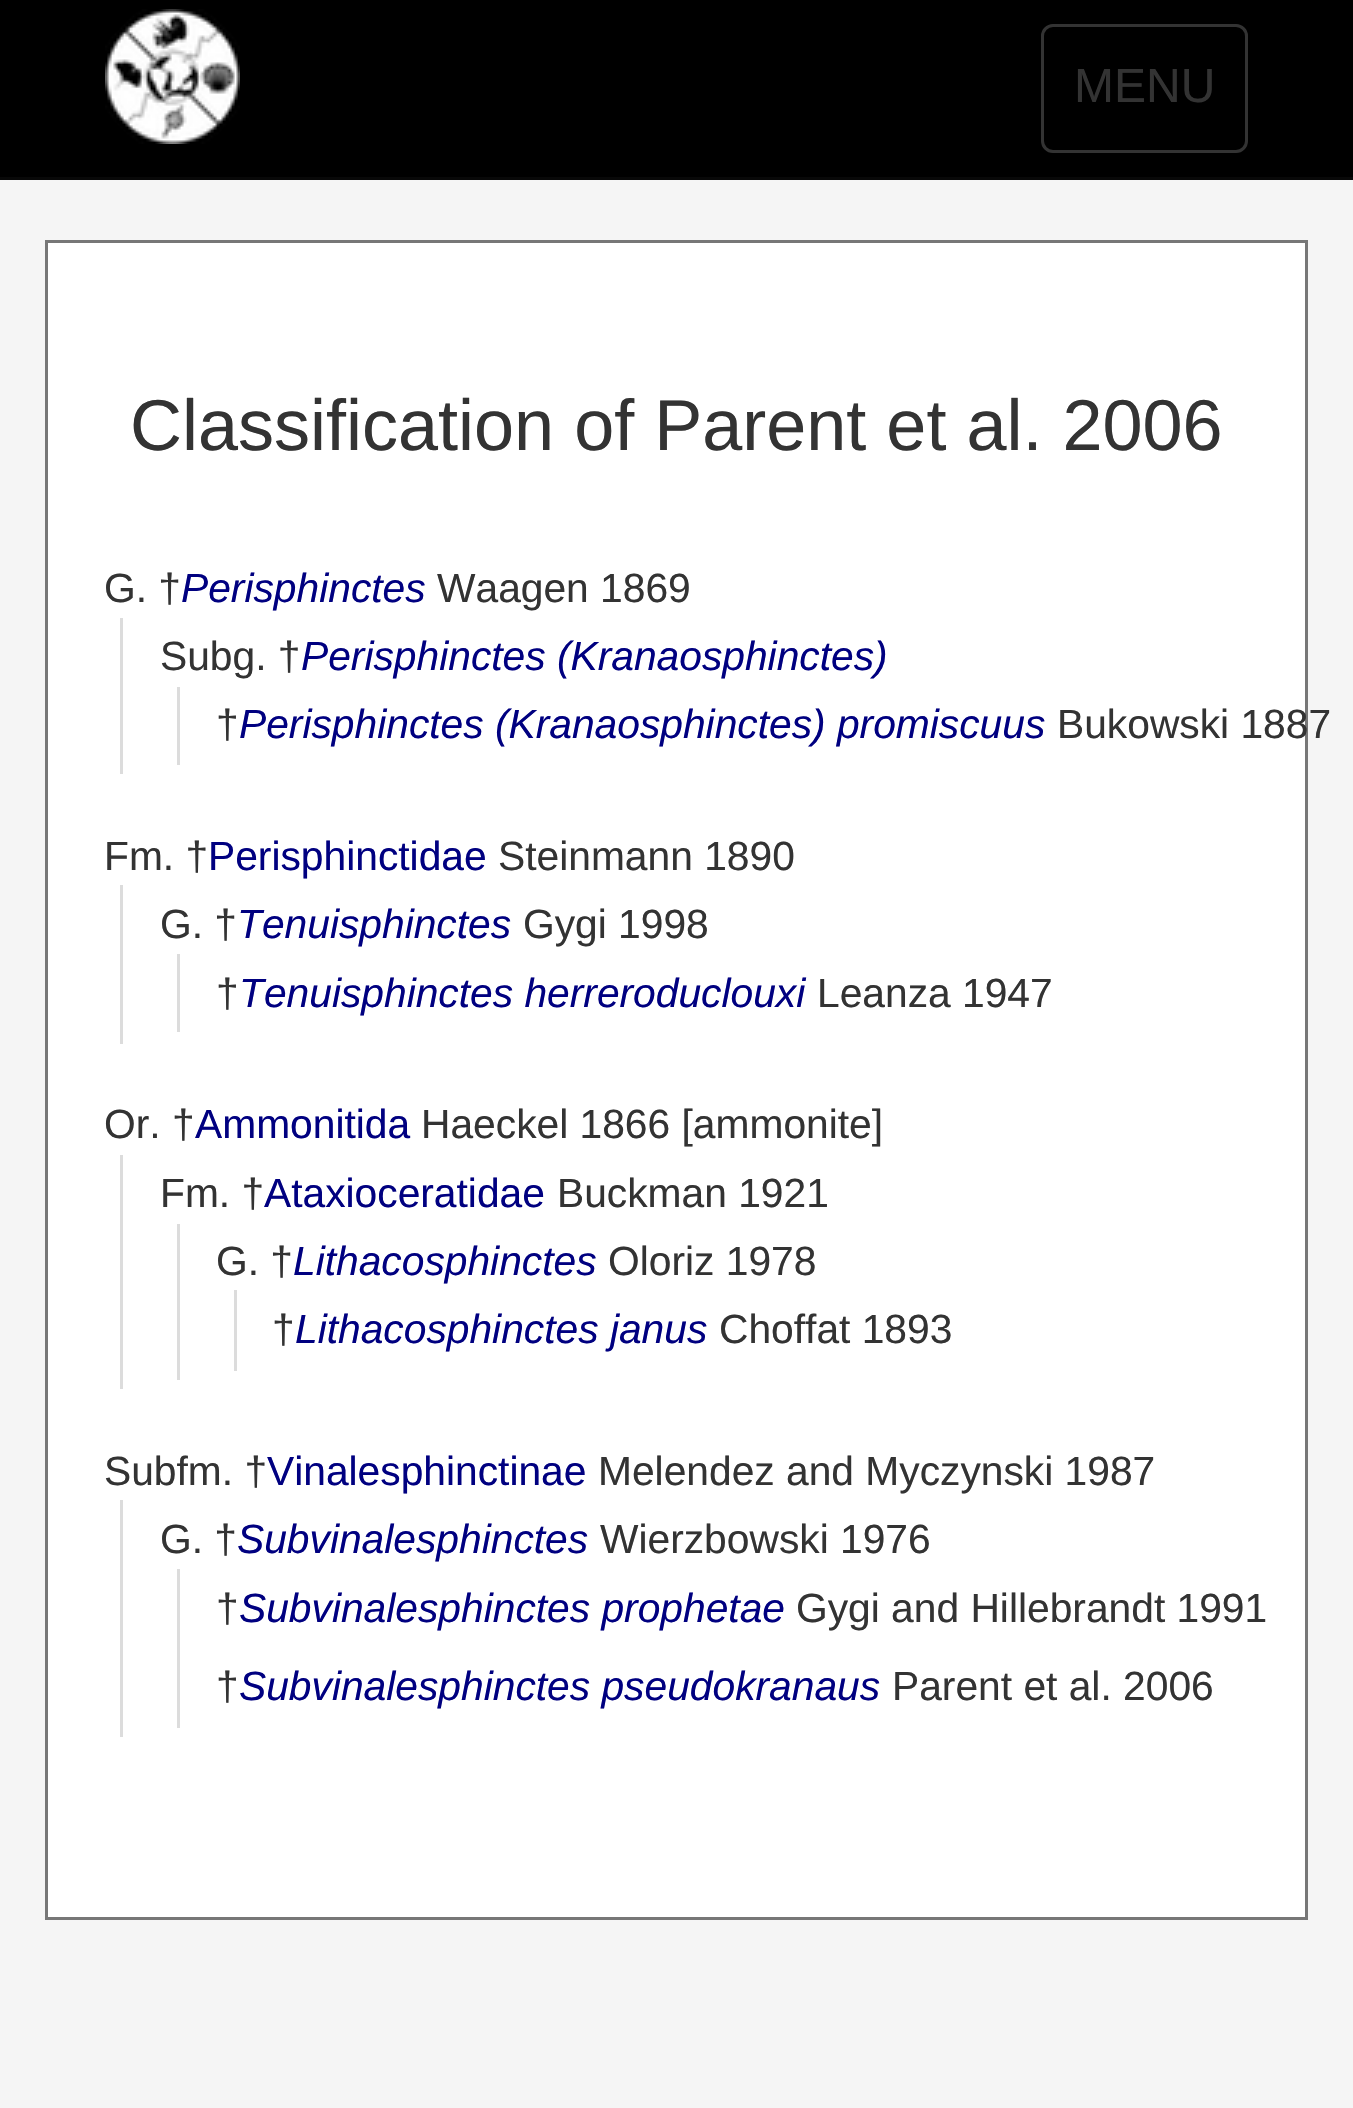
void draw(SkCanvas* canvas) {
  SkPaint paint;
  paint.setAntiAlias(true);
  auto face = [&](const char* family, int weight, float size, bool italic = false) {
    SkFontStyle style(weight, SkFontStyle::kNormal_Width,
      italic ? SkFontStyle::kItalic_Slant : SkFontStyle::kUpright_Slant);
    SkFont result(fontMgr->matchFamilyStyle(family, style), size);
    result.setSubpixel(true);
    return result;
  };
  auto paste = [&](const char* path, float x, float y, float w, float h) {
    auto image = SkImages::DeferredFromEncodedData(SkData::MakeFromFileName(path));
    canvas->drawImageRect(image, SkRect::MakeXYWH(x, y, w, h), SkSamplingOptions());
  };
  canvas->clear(0xfff5f5f5);
  paint.setColor(0xff000000);
  canvas->drawRect(SkRect::MakeXYWH(0, 0, 1353, 177), paint);
  paint.setColor(0xff080808);
  canvas->drawRect(SkRect::MakeXYWH(0, 177, 1353, 3), paint);
  paste("img/1.png", 105, 9, 135, 135);
  paint.setStroke(true);
  paint.setStrokeWidth(3);
  paint.setColor(0xff333333);
  canvas->drawRoundRect(SkRect::MakeXYWH(1042.5f, 25.5f, 204, 126), 10.5f, 10.5f, paint);
  paint.setStroke(false);
  paint.setColor(0xffffffff);
  canvas->drawRect(SkRect::MakeXYWH(46.5f, 241.5f, 1260, 1677), paint);
  paint.setStroke(true);
  paint.setColor(0xff777777);
  canvas->drawRect(SkRect::MakeXYWH(46.5f, 241.5f, 1260, 1677), paint);
  paint.setStroke(false);
  {
    const struct { float x, y, w, h; SkColor color; } items[] = {
      {120, 618, 3, 156, 0xffdcdcdc},
      {177, 687, 3, 78, 0xffdcdcdc},
      {120, 885, 3, 159, 0xffdcdcdc},
      {177, 954, 3, 78, 0xffdcdcdc},
      {120, 1155, 3, 234, 0xffdcdcdc},
      {177, 1224, 3, 156, 0xffdcdcdc},
      {234, 1290, 3, 81, 0xffdcdcdc},
      {120, 1500, 3, 237, 0xffdcdcdc},
      {177, 1569, 3, 159, 0xffdcdcdc},
    };
    for (auto [x, y, w, h, color] : items) {
      paint.setColor(color);
      canvas->drawRect(SkRect::MakeXYWH(x, y, w, h), paint);
    }
  }
  auto f0 = face("Liberation Sans", 400, 48);
  paint.setColor(0xff333333);
  canvas->drawString("MENU", 1074, 102, f0, paint);
  auto f1 = face("Liberation Sans", 400, 72);
  canvas->drawString("Classification of Parent et al. 2006", 130, 450, f1, paint);
  auto f2 = face("Liberation Sans", 400, 40.75f);
  canvas->drawString("G. †", 104, 602, f2, paint);
  auto f3 = face("Liberation Sans", 400, 40.75f, true);
  paint.setColor(0xff000080);
  canvas->drawString("Perisphinctes", 181, 602, f3, paint);
  paint.setColor(0xff333333);
  canvas->drawString("Waagen 1869", 437, 602, f2, paint);
  canvas->drawString("Subg. †", 160, 670, f2, paint);
  paint.setColor(0xff000080);
  canvas->drawString("Perisphinctes (Kranaosphinctes)", 301, 670, f3, paint);
  paint.setColor(0xff333333);
  canvas->drawString("†", 216, 738, f2, paint);
  paint.setColor(0xff000080);
  canvas->drawString("Perisphinctes (Kranaosphinctes) promiscuus", 239, 738, f3, paint);
  paint.setColor(0xff333333);
  canvas->drawString("Bukowski 1887", 1057, 738, f2, paint);
  canvas->drawString("Fm. †", 104, 870, f2, paint);
  paint.setColor(0xff000080);
  canvas->drawString("Perisphinctidae", 208, 870, f2, paint);
  paint.setColor(0xff333333);
  canvas->drawString("Steinmann 1890", 498, 870, f2, paint);
  canvas->drawString("G. †", 160, 938, f2, paint);
  paint.setColor(0xff000080);
  canvas->drawString("Tenuisphinctes", 237, 938, f3, paint);
  paint.setColor(0xff333333);
  canvas->drawString("Gygi 1998", 523, 938, f2, paint);
  canvas->drawString("†", 216, 1007, f2, paint);
  paint.setColor(0xff000080);
  canvas->drawString("Tenuisphinctes herreroduclouxi", 239, 1007, f3, paint);
  paint.setColor(0xff333333);
  canvas->drawString("Leanza 1947", 817, 1007, f2, paint);
  canvas->drawString("Or. †", 104, 1138, f2, paint);
  paint.setColor(0xff000080);
  canvas->drawString("Ammonitida", 195, 1138, f2, paint);
  paint.setColor(0xff333333);
  canvas->drawString("Haeckel 1866 [ammonite]", 421, 1138, f2, paint);
  canvas->drawString("Fm. †", 160, 1207, f2, paint);
  paint.setColor(0xff000080);
  canvas->drawString("Ataxioceratidae", 264, 1207, f2, paint);
  paint.setColor(0xff333333);
  canvas->drawString("Buckman 1921", 557, 1207, f2, paint);
  canvas->drawString("G. †", 216, 1275, f2, paint);
  paint.setColor(0xff000080);
  canvas->drawString("Lithacosphinctes", 293, 1275, f3, paint);
  paint.setColor(0xff333333);
  canvas->drawString("Oloriz 1978", 608, 1275, f2, paint);
  canvas->drawString("†", 272, 1343, f2, paint);
  paint.setColor(0xff000080);
  canvas->drawString("Lithacosphinctes janus", 295, 1343, f3, paint);
  paint.setColor(0xff333333);
  canvas->drawString("Choffat 1893", 719, 1343, f2, paint);
  canvas->drawString("Subfm. †", 104, 1485, f2, paint);
  paint.setColor(0xff000080);
  canvas->drawString("Vinalesphinctinae", 267, 1485, f2, paint);
  paint.setColor(0xff333333);
  canvas->drawString("Melendez and Myczynski 1987", 598, 1485, f2, paint);
  canvas->drawString("G. †", 160, 1553, f2, paint);
  paint.setColor(0xff000080);
  canvas->drawString("Subvinalesphinctes", 237, 1553, f3, paint);
  paint.setColor(0xff333333);
  canvas->drawString("Wierzbowski 1976", 600, 1553, f2, paint);
  canvas->drawString("†", 216, 1622, f2, paint);
  paint.setColor(0xff000080);
  canvas->drawString("Subvinalesphinctes prophetae", 239, 1622, f3, paint);
  paint.setColor(0xff333333);
  canvas->drawString("Gygi and Hillebrandt 1991", 796, 1622, f2, paint);
  canvas->drawString("†", 216, 1700, f2, paint);
  paint.setColor(0xff000080);
  canvas->drawString("Subvinalesphinctes pseudokranaus", 239, 1700, f3, paint);
  paint.setColor(0xff333333);
  canvas->drawString("Parent et al. 2006", 892, 1700, f2, paint);
}
